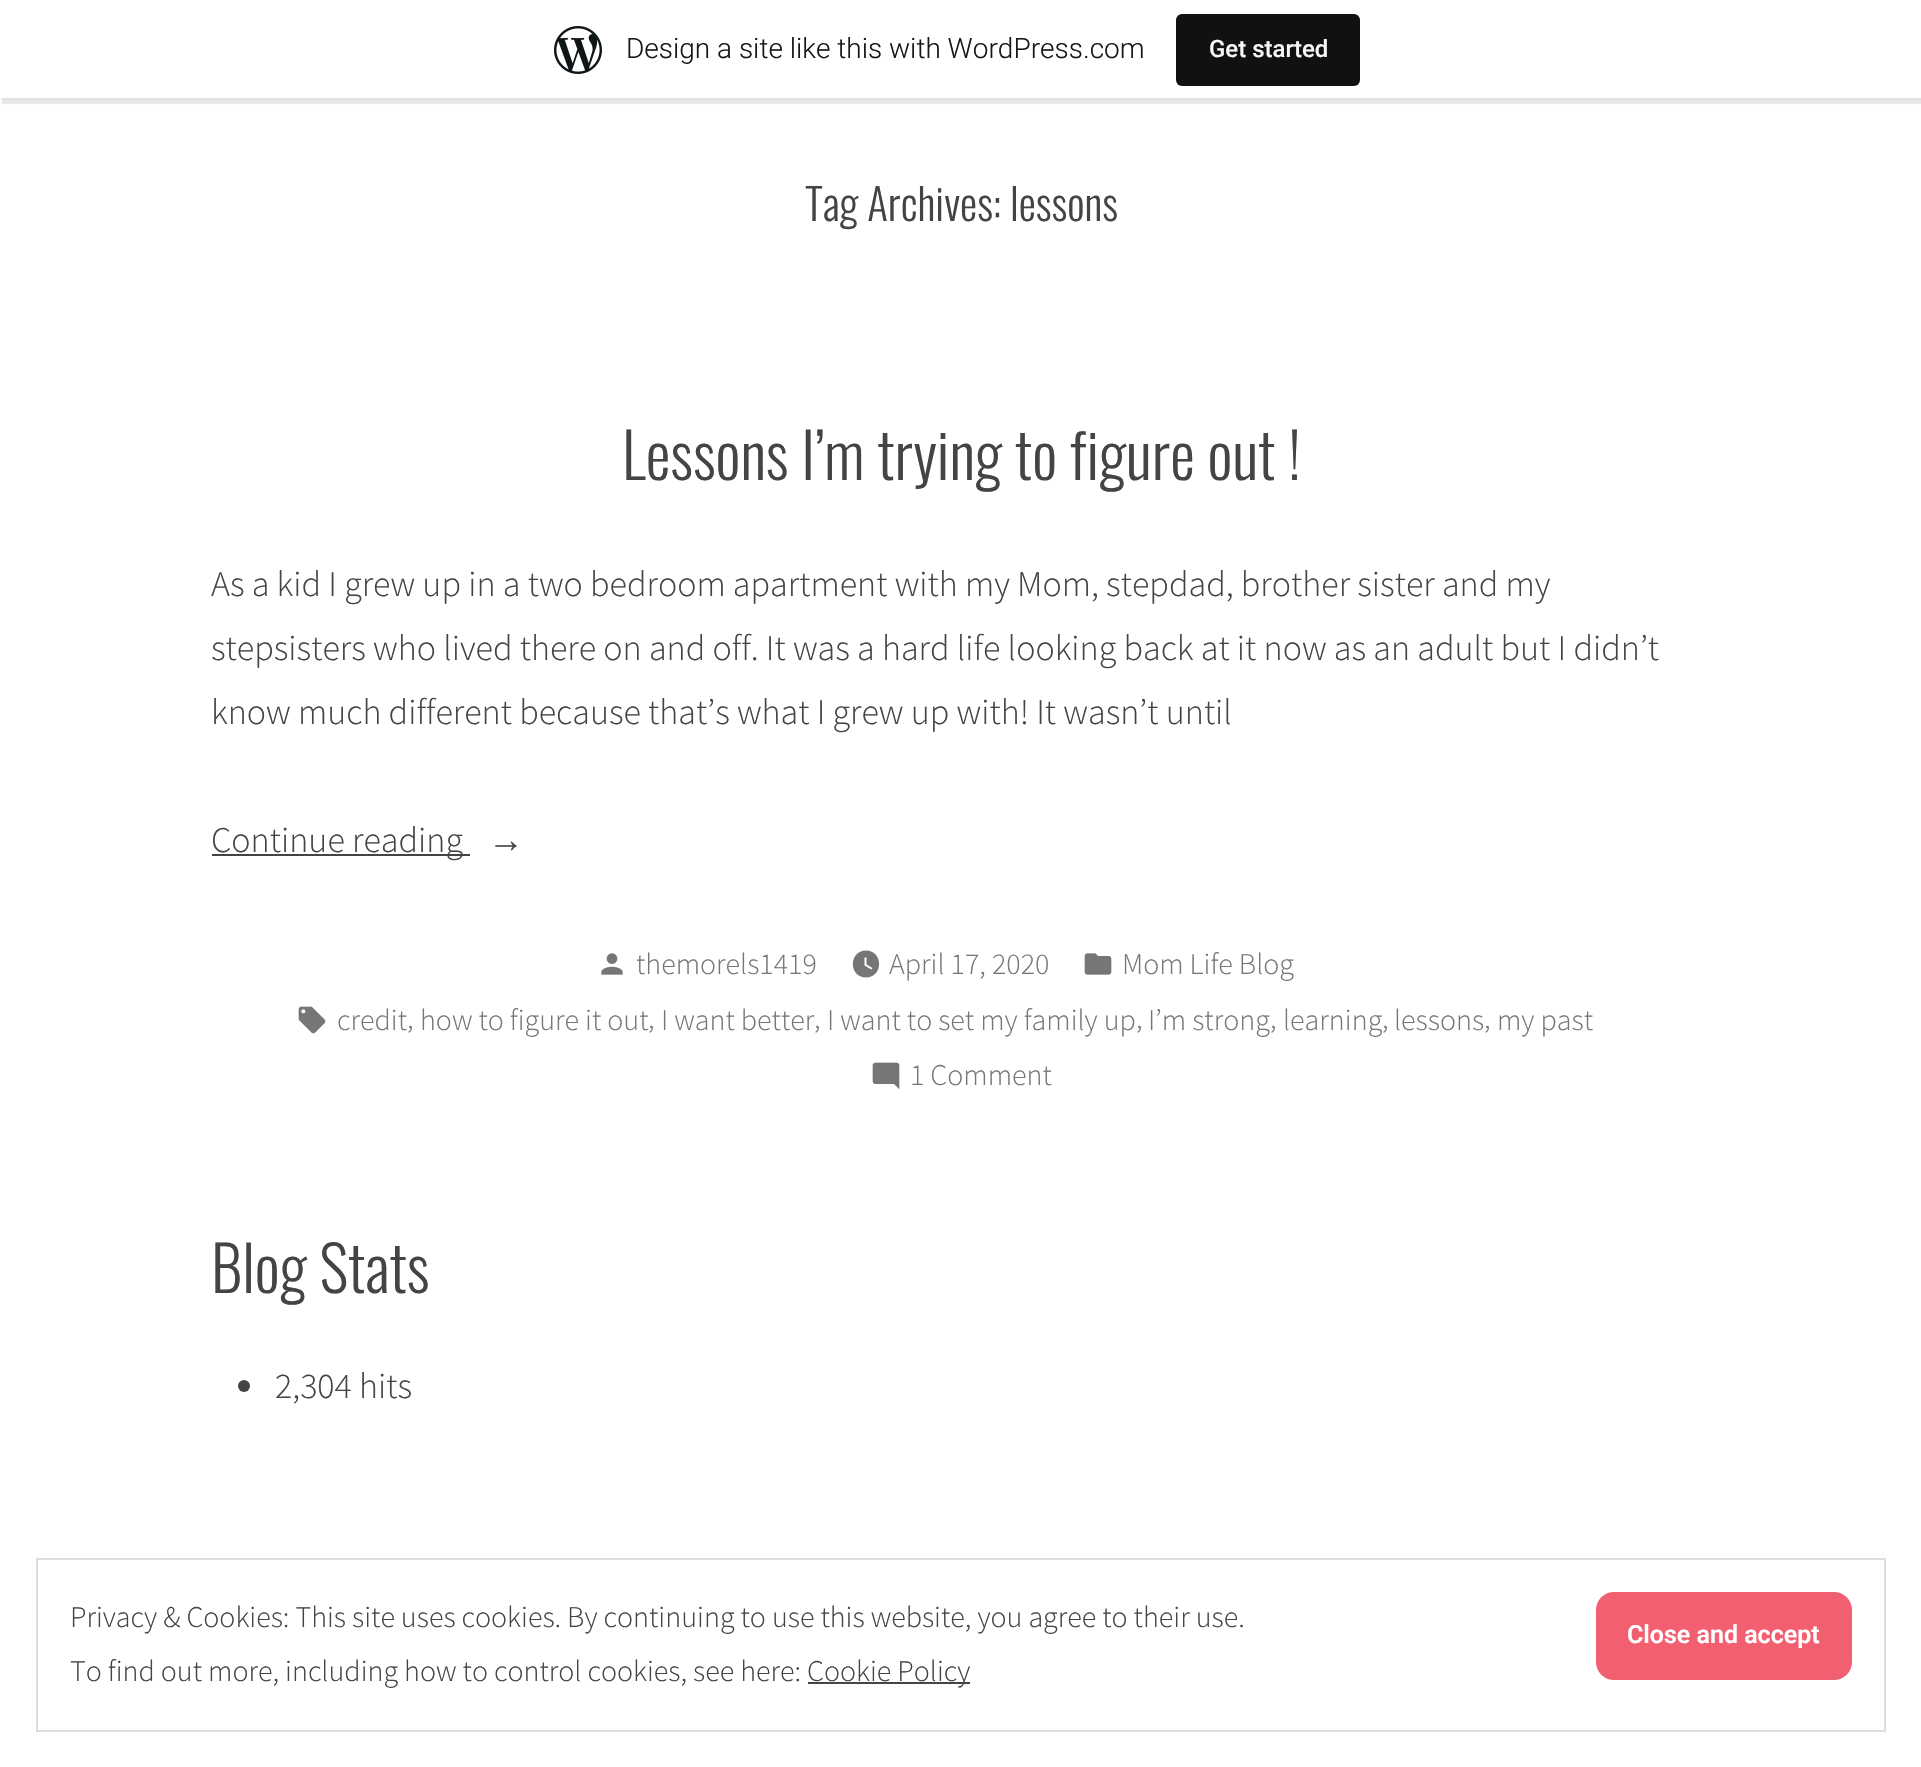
void draw(SkCanvas* canvas) {
  SkPaint paint;
  paint.setAntiAlias(true);
  auto face = [&](const char* family, int weight, float size, bool italic = false) {
    SkFontStyle style(weight, SkFontStyle::kNormal_Width,
      italic ? SkFontStyle::kItalic_Slant : SkFontStyle::kUpright_Slant);
    SkFont result(fontMgr->matchFamilyStyle(family, style), size);
    result.setSubpixel(true);
    return result;
  };
  auto paste = [&](const char* path, float x, float y, float w, float h) {
    auto image = SkImages::DeferredFromEncodedData(SkData::MakeFromFileName(path));
    canvas->drawImageRect(image, SkRect::MakeXYWH(x, y, w, h), SkSamplingOptions());
  };
  auto shape = [&](const char* data, bool evenOdd = false) {
    SkPath result = *SkParsePath::FromSVGString(data);
    if (evenOdd) result.setFillType(SkPathFillType::kEvenOdd);
    return result;
  };
  canvas->clear(0xffffffff);
  paint.setColor(0x0d000000);
  paint.setMaskFilter(SkMaskFilter::MakeBlur(kNormal_SkBlurStyle, 2));
  canvas->drawRect(SkRect::MakeXYWH(0, 2, 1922, 98), paint);
  paint.setMaskFilter(nullptr);
  paint.setColor(0x14000000);
  canvas->drawPath(shape("M2 98V104H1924V6H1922V98Z"), paint);
  paint.setColor(0xffffffff);
  canvas->drawRect(SkRect::MakeXYWH(0, 0, 1921, 98), paint);
  paste("img/1.png", 554, 26, 48, 48);
  paint.setColor(0xff111111);
  canvas->drawRoundRect(SkRect::MakeXYWH(1176, 14, 184, 72), 6, 6, paint);
  paint.setColor(0xff444444);
  canvas->drawRect(SkRect::MakeXYWH(212, 854, 258, 2), paint);
  paste("img/2.png", 601, 953, 22, 22);
  paint.setColor(0xff767676);
  canvas->drawPath(shape("M866 950.5C848.5 950.5 848.5 977.5 866 977.5C883.5 977.5 883.5 950.5 866 950.5ZM871.5 969.5L864.5 965.5V957.5H866.5V964.5L872.5 968Z"), paint);
  paste("img/3.png", 1084, 953, 28, 22);
  paste("img/4.png", 298, 1006, 28, 28);
  paste("img/5.png", 872, 1062, 28, 28);
  paint.setColor(0xff444444);
  canvas->drawCircle(244, 1386, 6, paint);
  paint.setStroke(true);
  paint.setStrokeWidth(2);
  paint.setColor(0xffdddddd);
  canvas->drawRect(SkRect::MakeXYWH(37, 1559, 1848, 172), paint);
  paint.setStroke(false);
  paint.setColor(0xfff25f70);
  canvas->drawRoundRect(SkRect::MakeXYWH(1596, 1592, 256, 88), 18, 18, paint);
  paint.setColor(0xff444444);
  canvas->drawRect(SkRect::MakeXYWH(808, 1682, 162, 2), paint);
  auto f0 = face("Roboto", 300, 28);
  paint.setColor(0xff171717);
  canvas->drawString("Design a site like this with WordPress.com", 626, 58, f0, paint);
  auto f1 = face("Roboto", 500, 24);
  paint.setColor(0xfff6f7f7);
  canvas->drawString("Get started", 1209, 57, f1, paint);
  auto f2 = face("Oswald", 300, 43.25f);
  paint.setColor(0xff444444);
  canvas->drawString("Tag Archives: lessons", 805, 221, f2, paint);
  auto f3 = face("Oswald", 300, 62.25f);
  canvas->drawString("Lessons I’m trying to figure out !", 622, 480, f3, paint);
  auto f4 = face("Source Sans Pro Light", 300, 36);
  {
    const struct { const char* s; float x, y; } items[] = {
      {"As a kid I grew up in a two bedroom apartment with my Mom, stepdad, brother sister and my", 211, 596},
      {"stepsisters who lived there on and off. It was a hard life looking back at it now as an adult but I didn’t", 211, 660},
      {"know much different because that’s what I grew up with! It wasn’t until", 211, 724},
      {"Continue reading", 211, 852},
    };
    for (auto [s, x, y] : items) {
      canvas->drawString(s, x, y, f4, paint);
    }
  }
  auto f5 = face("Liberation Sans", 400, 36);
  canvas->drawString("→", 488, 852, f5, paint);
  auto f6 = face("Source Sans Pro Light", 300, 30);
  paint.setColor(0xff767676);
  {
    const struct { const char* s; float x, y; } items[] = {
      {"themorels1419", 636, 974},
      {"April 17, 2020", 889, 974},
      {"Mom Life Blog", 1122, 974},
      {"credit", 337, 1030},
      {",", 407, 1028},
      {"how to figure it out", 420, 1030},
      {",", 648, 1028},
      {"I want better", 661, 1030},
      {",", 814, 1028},
      {"I want to set my family up", 827, 1030},
      {",", 1136, 1028},
      {"I’m strong", 1148, 1030},
      {",", 1270, 1028},
      {"learning", 1283, 1030},
      {",", 1382, 1028},
      {"lessons", 1394, 1030},
      {",", 1484, 1028},
      {"my past", 1497, 1030},
      {"1 Comment", 910, 1085},
    };
    for (auto [s, x, y] : items) {
      canvas->drawString(s, x, y, f6, paint);
    }
  }
  paint.setColor(0xff444444);
  canvas->drawString("Blog Stats", 211, 1293, f3, paint);
  canvas->drawString("2,304 hits", 275, 1398, f4, paint);
  canvas->drawString("Privacy & Cookies: This site uses cookies. By continuing to use this website, you agree to their use.", 70, 1627, f6, paint);
  auto f7 = face("Roboto", 600, 25);
  paint.setColor(0xffffffff);
  canvas->drawString("Close and accept", 1627, 1643, f7, paint);
  paint.setColor(0xff444444);
  canvas->drawString("To find out more, including how to control cookies, see here:", 70, 1681, f6, paint);
  canvas->drawString("Cookie Policy", 807, 1681, f6, paint);
}
